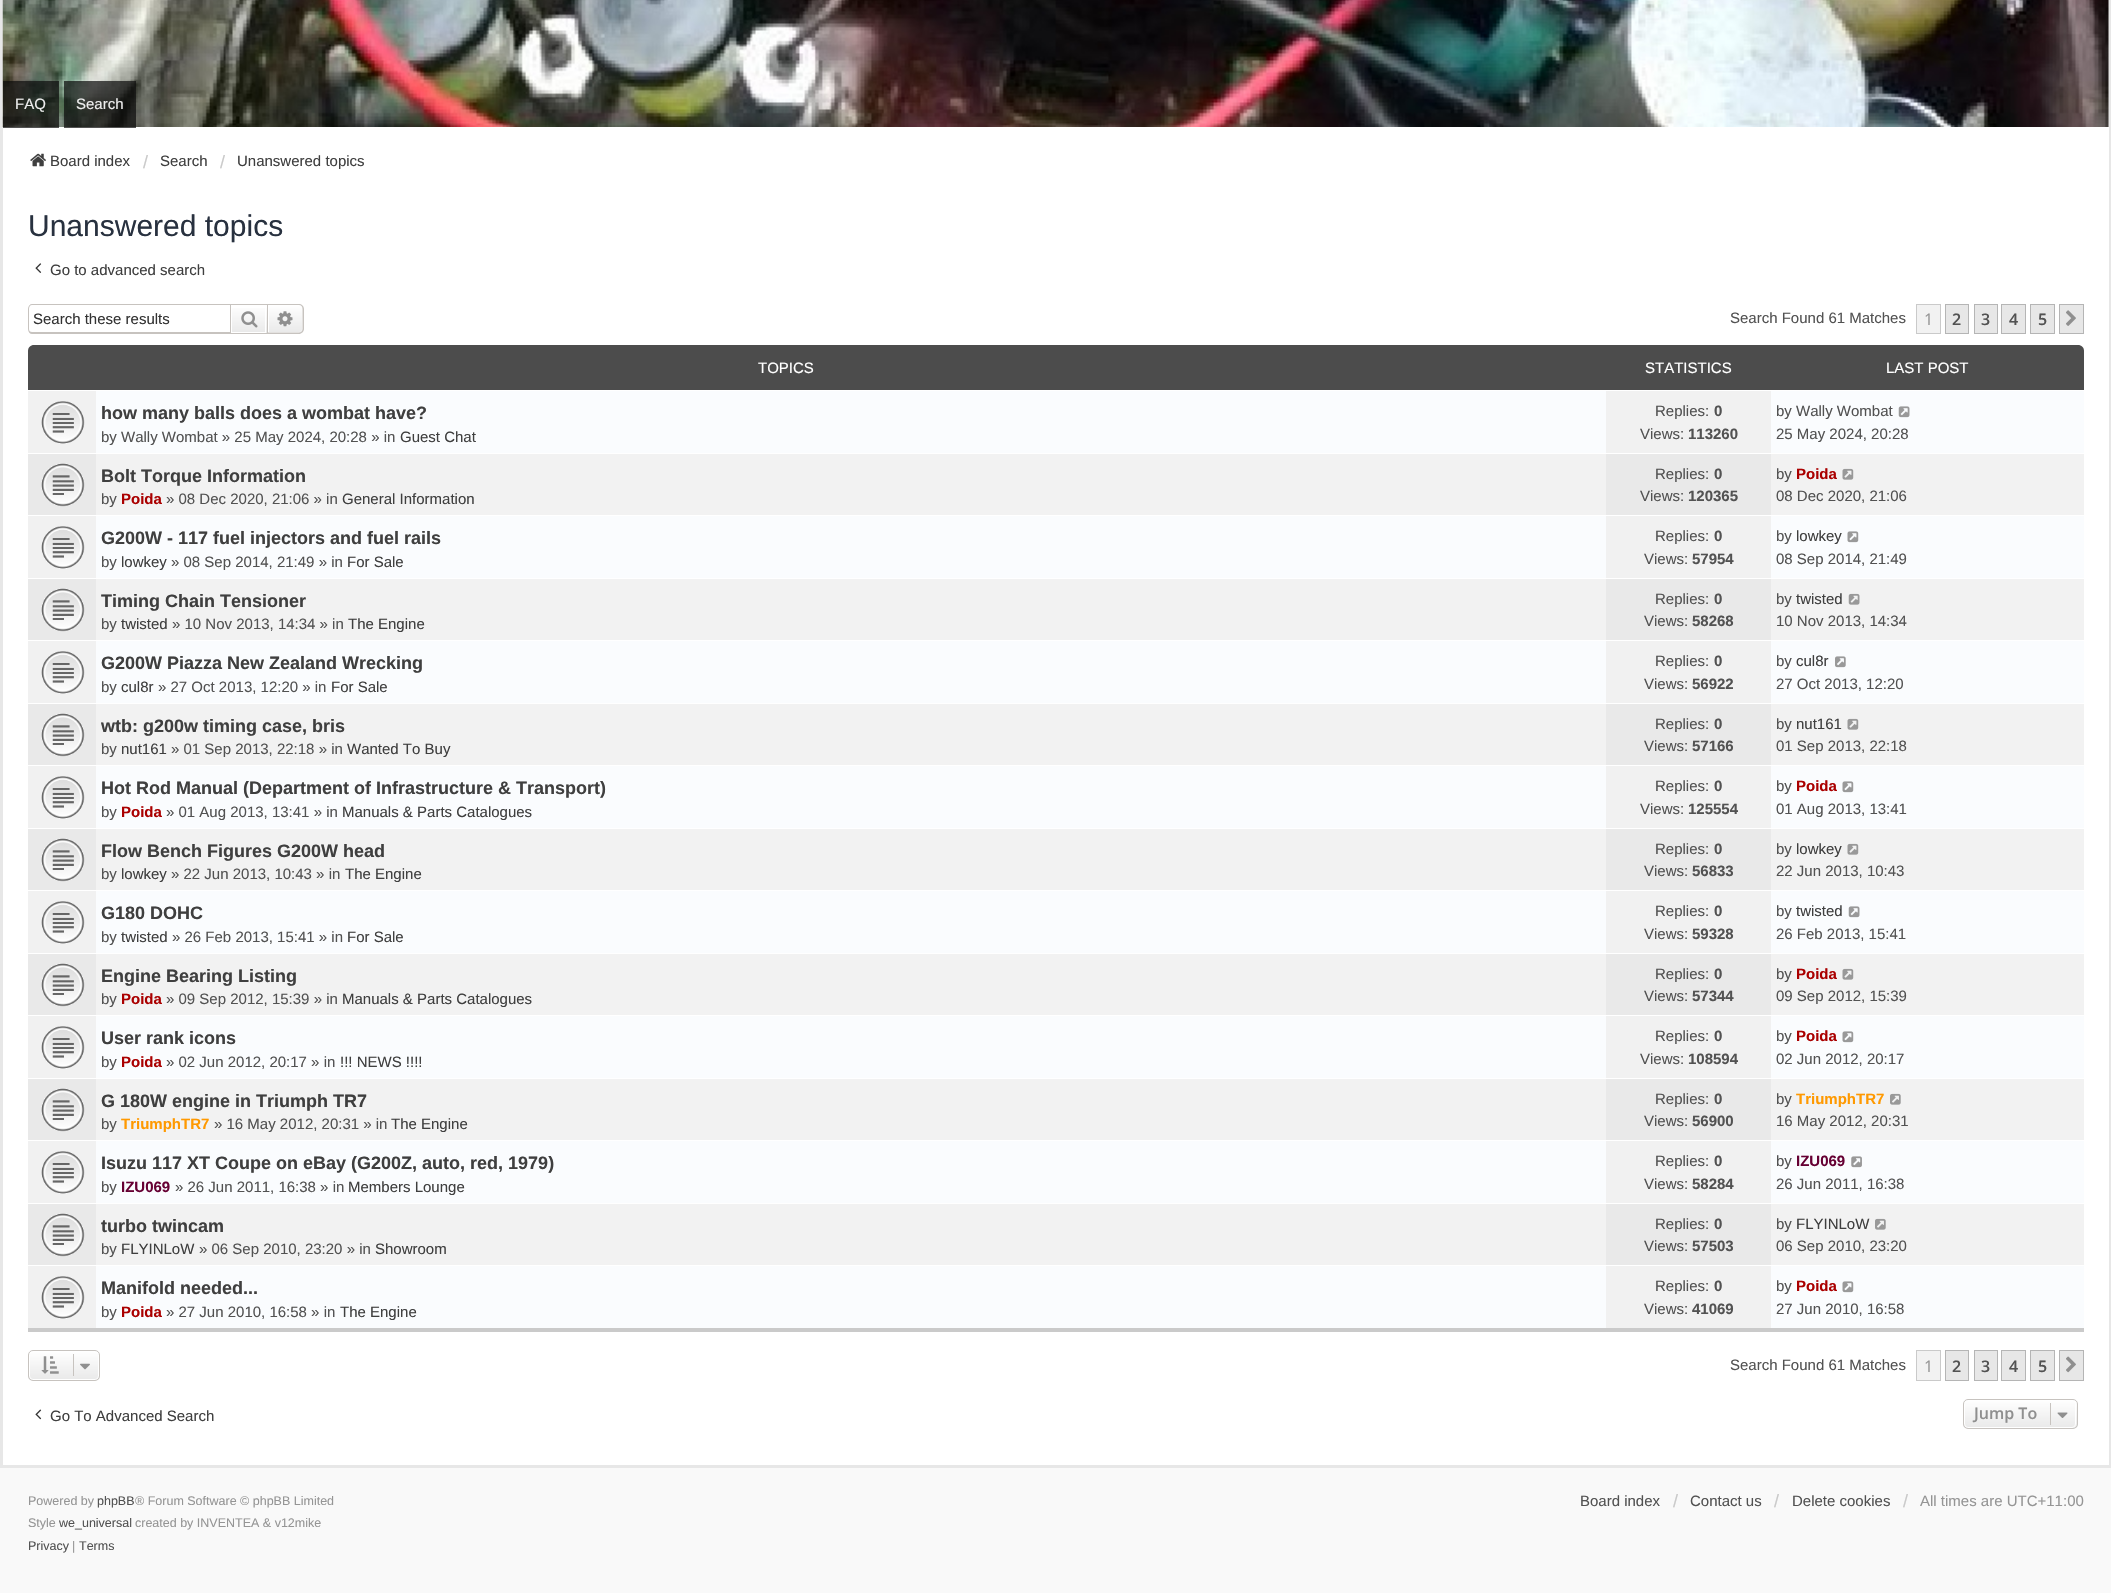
void draw(SkCanvas* canvas) {
  SkPaint paint;
  paint.setAntiAlias(true);
  auto face = [&](const char* family, int weight, float size, bool italic = false) {
    SkFontStyle style(weight, SkFontStyle::kNormal_Width,
      italic ? SkFontStyle::kItalic_Slant : SkFontStyle::kUpright_Slant);
    SkFont result(fontMgr->matchFamilyStyle(family, style), size);
    result.setSubpixel(true);
    return result;
  };
  auto paste = [&](const char* path, float x, float y, float w, float h) {
    auto image = SkImages::DeferredFromEncodedData(SkData::MakeFromFileName(path));
    canvas->drawImageRect(image, SkRect::MakeXYWH(x, y, w, h), SkSamplingOptions());
  };
  auto shape = [&](const char* data, bool evenOdd = false) {
    SkPath result = *SkParsePath::FromSVGString(data);
    if (evenOdd) result.setFillType(SkPathFillType::kEvenOdd);
    return result;
  };
  canvas->clear(0xfff9f9f9);
  {
    const struct { float x, y, w, h; SkColor color; } items[] = {
      {3, 0, 2106, 1465, 0xffffffff},
      {2109, 0, 2, 1468, 0xffe7e7e7},
      {0, 0, 3, 128, 0xffe7e7e7},
    };
    for (auto [x, y, w, h, color] : items) {
      paint.setColor(color);
      canvas->drawRect(SkRect::MakeXYWH(x, y, w, h), paint);
    }
  }
  paste("img/1.png", 2, 0, 2107, 127);
  {
    const struct { float x, y, w, h; SkColor color; } items[] = {
      {3, 81, 56, 47, 0xb30a0a0a},
      {64, 81, 72, 47, 0xb30a0a0a},
      {0, 1465, 2111, 3, 0xffe7e7e7},
      {0, 128, 3, 1340, 0xffe7e7e7},
    };
    for (auto [x, y, w, h, color] : items) {
      paint.setColor(color);
      canvas->drawRect(SkRect::MakeXYWH(x, y, w, h), paint);
    }
  }
  paste("img/2.png", 30, 153, 16, 14);
  paste("img/3.png", 35, 263, 7, 10);
  paint.setColor(0xffc7c3bf);
  canvas->drawPath(shape("M32 304H230V334H32C30 334 28 332 28 329V309C28 306 30 304 32 304ZM32 305H230V332H32C30 332 29 331 29 329V309C29 307 30 305 32 305Z", true), paint);
  {
    const SkColor colors[] = {0xffffffff, 0xffe9e9e9};
    const float stops[] = {0, 1};
    const SkPoint ends[] = {{249, 305}, {249, 333}};
    paint.setShader(SkGradientShader::MakeLinear(ends, colors, stops, 2, SkTileMode::kClamp));
    paint.setAlpha(255);
  }
  canvas->drawRect(SkRect::MakeXYWH(232, 308, 35, 25), paint);
  paint.setStroke(true);
  paint.setStrokeWidth(1);
  paint.setShader(nullptr);
  paint.setColor(0xffffffff);
  canvas->drawRect(SkRect::MakeXYWH(231.5f, 305.5f, 34, 27), paint);
  paint.setColor(0xffc7c3bf);
  canvas->drawRect(SkRect::MakeXYWH(230.5f, 304.5f, 37, 29), paint);
  paste("img/4.png", 241, 311, 17, 17);
  paint.setStroke(false);
  {
    const SkColor colors[] = {0xffffffff, 0xffe9e9e9};
    const float stops[] = {0, 1};
    const SkPoint ends[] = {{285, 305}, {285, 333}};
    paint.setShader(SkGradientShader::MakeLinear(ends, colors, stops, 2, SkTileMode::kClamp));
    paint.setAlpha(255);
  }
  canvas->drawPath(shape("M268.5 305.5H299C301 305.5 302.5 307 302.5 309V329C302.5 331 301 332.5 299 332.5H268.5Z"), paint);
  paint.setStroke(true);
  paint.setShader(nullptr);
  paint.setColor(0xffffffff);
  canvas->drawPath(shape("M268.5 305.5H299C301 305.5 302.5 307 302.5 309V329C302.5 331 301 332.5 299 332.5H268.5Z"), paint);
  paint.setStroke(false);
  paint.setColor(0xffc7c3bf);
  canvas->drawPath(shape("M267.5 304H299C301.5 304 304 306 304 309V329C304 331.5 301.5 334 299 334H267.5ZM267.5 305H299C301 305 302.5 306.5 302.5 309V329C302.5 331 301 332.5 299 332.5H267.5Z", true), paint);
  paste("img/5.png", 277, 311, 16, 16);
  paint.setColor(0xfff2f2f2);
  canvas->drawRect(SkRect::MakeXYWH(1916.5f, 304.5f, 24, 29), paint);
  paint.setStroke(true);
  paint.setColor(0xffcacaca);
  canvas->drawRect(SkRect::MakeXYWH(1916.5f, 304.5f, 24, 29), paint);
  paint.setStroke(false);
  paint.setColor(0xffe7e7e7);
  canvas->drawRect(SkRect::MakeXYWH(1945.5f, 304.5f, 23, 29), paint);
  paint.setStroke(true);
  paint.setColor(0xffb5b5b5);
  canvas->drawRect(SkRect::MakeXYWH(1945.5f, 304.5f, 23, 29), paint);
  paint.setStroke(false);
  paint.setColor(0xffe7e7e7);
  canvas->drawRect(SkRect::MakeXYWH(1974.5f, 304.5f, 23, 29), paint);
  paint.setStroke(true);
  paint.setColor(0xffb5b5b5);
  canvas->drawRect(SkRect::MakeXYWH(1974.5f, 304.5f, 23, 29), paint);
  paint.setStroke(false);
  paint.setColor(0xffe7e7e7);
  canvas->drawRect(SkRect::MakeXYWH(2001.5f, 304.5f, 24, 29), paint);
  paint.setStroke(true);
  paint.setColor(0xffb5b5b5);
  canvas->drawRect(SkRect::MakeXYWH(2001.5f, 304.5f, 24, 29), paint);
  paint.setStroke(false);
  paint.setColor(0xffe7e7e7);
  canvas->drawRect(SkRect::MakeXYWH(2030.5f, 304.5f, 24, 29), paint);
  paint.setStroke(true);
  paint.setColor(0xffb5b5b5);
  canvas->drawRect(SkRect::MakeXYWH(2030.5f, 304.5f, 24, 29), paint);
  paint.setStroke(false);
  paint.setColor(0xffe7e7e7);
  canvas->drawRect(SkRect::MakeXYWH(2059.5f, 304.5f, 24, 29), paint);
  paint.setStroke(true);
  paint.setColor(0xffb5b5b5);
  canvas->drawRect(SkRect::MakeXYWH(2059.5f, 304.5f, 24, 29), paint);
  paste("img/6.png", 2066, 310, 10, 16);
  paint.setStroke(false);
  paint.setColor(0xff4c4c4c);
  canvas->drawPath(shape("M34 345H2078C2081.5 345 2084 347.5 2084 351V1331H28V351C28 347.5 30.5 345 34 345Z"), paint);
  {
    const struct { float x, y, w, h; SkColor color; } items[] = {
      {28, 1328, 2056, 4, 0xffcacaca},
      {96, 391, 1988, 937, 0xfffafcfe},
      {28, 390, 2056, 1, 0xffffffff},
      {28, 391, 68, 62, 0xfff1f1f1},
    };
    for (auto [x, y, w, h, color] : items) {
      paint.setColor(color);
      canvas->drawRect(SkRect::MakeXYWH(x, y, w, h), paint);
    }
  }
  paste("img/7.png", 41, 401, 44, 43);
  canvas->drawRect(SkRect::MakeXYWH(1606, 391, 165, 62), paint);
  paste("img/8.png", 1898, 406, 12, 12);
  {
    const struct { float x, y, w, h; SkColor color; } items[] = {
      {96, 454, 1988, 61, 0xfff2f2f2},
      {28, 453, 2056, 1, 0xffffffff},
      {28, 454, 68, 61, 0xffe9e9e9},
    };
    for (auto [x, y, w, h, color] : items) {
      paint.setColor(color);
      canvas->drawRect(SkRect::MakeXYWH(x, y, w, h), paint);
    }
  }
  paste("img/9.png", 41, 463, 44, 44);
  canvas->drawRect(SkRect::MakeXYWH(1606, 454, 165, 61), paint);
  paste("img/10.png", 1842, 468, 12, 12);
  paint.setColor(0xffffffff);
  canvas->drawRect(SkRect::MakeXYWH(28, 515, 2056, 1), paint);
  paint.setColor(0xfff1f1f1);
  canvas->drawRect(SkRect::MakeXYWH(28, 516, 68, 62), paint);
  paste("img/7.png", 41, 526, 44, 43);
  canvas->drawRect(SkRect::MakeXYWH(1606, 516, 165, 62), paint);
  paste("img/11.png", 1847, 531, 12, 12);
  {
    const struct { float x, y, w, h; SkColor color; } items[] = {
      {96, 579, 1988, 61, 0xfff2f2f2},
      {28, 578, 2056, 1, 0xffffffff},
      {28, 579, 68, 61, 0xffe9e9e9},
    };
    for (auto [x, y, w, h, color] : items) {
      paint.setColor(color);
      canvas->drawRect(SkRect::MakeXYWH(x, y, w, h), paint);
    }
  }
  paste("img/9.png", 41, 588, 44, 44);
  canvas->drawRect(SkRect::MakeXYWH(1606, 579, 165, 61), paint);
  paste("img/12.png", 1848, 593, 12, 12);
  paint.setColor(0xffffffff);
  canvas->drawRect(SkRect::MakeXYWH(28, 640, 2056, 1), paint);
  paint.setColor(0xfff1f1f1);
  canvas->drawRect(SkRect::MakeXYWH(28, 641, 68, 62), paint);
  paste("img/7.png", 41, 651, 44, 43);
  canvas->drawRect(SkRect::MakeXYWH(1606, 641, 165, 62), paint);
  paste("img/13.png", 1835, 656, 11, 12);
  {
    const struct { float x, y, w, h; SkColor color; } items[] = {
      {96, 704, 1988, 61, 0xfff2f2f2},
      {28, 703, 2056, 1, 0xffffffff},
      {28, 704, 68, 61, 0xffe9e9e9},
    };
    for (auto [x, y, w, h, color] : items) {
      paint.setColor(color);
      canvas->drawRect(SkRect::MakeXYWH(x, y, w, h), paint);
    }
  }
  paste("img/9.png", 41, 713, 44, 44);
  canvas->drawRect(SkRect::MakeXYWH(1606, 704, 165, 61), paint);
  paste("img/10.png", 1847, 718, 12, 12);
  paint.setColor(0xffffffff);
  canvas->drawRect(SkRect::MakeXYWH(28, 765, 2056, 1), paint);
  paint.setColor(0xfff1f1f1);
  canvas->drawRect(SkRect::MakeXYWH(28, 766, 68, 62), paint);
  paste("img/7.png", 41, 776, 44, 43);
  canvas->drawRect(SkRect::MakeXYWH(1606, 766, 165, 62), paint);
  paste("img/11.png", 1842, 781, 12, 12);
  {
    const struct { float x, y, w, h; SkColor color; } items[] = {
      {96, 829, 1988, 61, 0xfff2f2f2},
      {28, 828, 2056, 1, 0xffffffff},
      {28, 829, 68, 61, 0xffe9e9e9},
    };
    for (auto [x, y, w, h, color] : items) {
      paint.setColor(color);
      canvas->drawRect(SkRect::MakeXYWH(x, y, w, h), paint);
    }
  }
  paste("img/9.png", 41, 838, 44, 44);
  canvas->drawRect(SkRect::MakeXYWH(1606, 829, 165, 61), paint);
  paste("img/10.png", 1847, 843, 12, 12);
  paint.setColor(0xffffffff);
  canvas->drawRect(SkRect::MakeXYWH(28, 890, 2056, 1), paint);
  paint.setColor(0xfff1f1f1);
  canvas->drawRect(SkRect::MakeXYWH(28, 891, 68, 62), paint);
  paste("img/7.png", 41, 901, 44, 43);
  canvas->drawRect(SkRect::MakeXYWH(1606, 891, 165, 62), paint);
  paste("img/8.png", 1848, 906, 12, 12);
  {
    const struct { float x, y, w, h; SkColor color; } items[] = {
      {96, 954, 1988, 61, 0xfff2f2f2},
      {28, 953, 2056, 1, 0xffffffff},
      {28, 954, 68, 61, 0xffe9e9e9},
    };
    for (auto [x, y, w, h, color] : items) {
      paint.setColor(color);
      canvas->drawRect(SkRect::MakeXYWH(x, y, w, h), paint);
    }
  }
  paste("img/9.png", 41, 963, 44, 44);
  canvas->drawRect(SkRect::MakeXYWH(1606, 954, 165, 61), paint);
  paste("img/10.png", 1842, 968, 12, 12);
  paint.setColor(0xffffffff);
  canvas->drawRect(SkRect::MakeXYWH(28, 1015, 2056, 1), paint);
  paint.setColor(0xfff1f1f1);
  canvas->drawRect(SkRect::MakeXYWH(28, 1016, 68, 62), paint);
  paste("img/7.png", 41, 1026, 44, 43);
  canvas->drawRect(SkRect::MakeXYWH(1606, 1016, 165, 62), paint);
  paste("img/11.png", 1842, 1031, 12, 12);
  {
    const struct { float x, y, w, h; SkColor color; } items[] = {
      {96, 1079, 1988, 61, 0xfff2f2f2},
      {28, 1078, 2056, 1, 0xffffffff},
      {28, 1079, 68, 61, 0xffe9e9e9},
    };
    for (auto [x, y, w, h, color] : items) {
      paint.setColor(color);
      canvas->drawRect(SkRect::MakeXYWH(x, y, w, h), paint);
    }
  }
  paste("img/9.png", 41, 1088, 44, 44);
  canvas->drawRect(SkRect::MakeXYWH(1606, 1079, 165, 61), paint);
  paste("img/14.png", 1890, 1093, 11, 12);
  paint.setColor(0xffffffff);
  canvas->drawRect(SkRect::MakeXYWH(28, 1140, 2056, 1), paint);
  paint.setColor(0xfff1f1f1);
  canvas->drawRect(SkRect::MakeXYWH(28, 1141, 68, 62), paint);
  paste("img/7.png", 41, 1151, 44, 43);
  canvas->drawRect(SkRect::MakeXYWH(1606, 1141, 165, 62), paint);
  paste("img/15.png", 1851, 1156, 11, 12);
  {
    const struct { float x, y, w, h; SkColor color; } items[] = {
      {96, 1204, 1988, 61, 0xfff2f2f2},
      {28, 1203, 2056, 1, 0xffffffff},
      {28, 1204, 68, 61, 0xffe9e9e9},
    };
    for (auto [x, y, w, h, color] : items) {
      paint.setColor(color);
      canvas->drawRect(SkRect::MakeXYWH(x, y, w, h), paint);
    }
  }
  paste("img/9.png", 41, 1213, 44, 44);
  canvas->drawRect(SkRect::MakeXYWH(1606, 1204, 165, 61), paint);
  paste("img/14.png", 1875, 1218, 11, 12);
  paint.setColor(0xffffffff);
  canvas->drawRect(SkRect::MakeXYWH(28, 1265, 2056, 1), paint);
  paint.setColor(0xfff1f1f1);
  canvas->drawRect(SkRect::MakeXYWH(28, 1266, 68, 62), paint);
  paste("img/7.png", 41, 1276, 44, 43);
  canvas->drawRect(SkRect::MakeXYWH(1606, 1266, 165, 62), paint);
  paste("img/11.png", 1842, 1281, 12, 12);
  canvas->save();
  canvas->clipPath(shape("M33 1350H95C98 1350 100 1352 100 1355V1376C100 1379 98 1381 95 1381H33C30 1381 28 1379 28 1376V1355C28 1352 30 1350 33 1350Z"), true);
  {
    const SkColor colors[] = {0xffffffff, 0xffe9e9e9};
    const float stops[] = {0, 1};
    const SkPoint ends[] = {{64, 1351}, {64, 1380}};
    paint.setShader(SkGradientShader::MakeLinear(ends, colors, stops, 2, SkTileMode::kClamp));
    paint.setAlpha(255);
  }
  canvas->drawRect(SkRect::MakeXYWH(28, 1351, 72, 29), paint);
  canvas->restore();
  paint.setStroke(true);
  paint.setShader(nullptr);
  paint.setColor(0xffffffff);
  canvas->drawRoundRect(SkRect::MakeXYWH(29.5f, 1351.5f, 69, 28), 3.5f, 3.5f, paint);
  paint.setColor(0xffc7c3bf);
  canvas->drawRoundRect(SkRect::MakeXYWH(28.5f, 1350.5f, 71, 30), 4.5f, 4.5f, paint);
  paste("img/16.png", 41, 1356, 18, 18);
  paint.setStroke(false);
  canvas->drawRect(SkRect::MakeXYWH(73, 1354, 1, 22), paint);
  paste("img/17.png", 80, 1363, 10, 7);
  paint.setColor(0xfff2f2f2);
  canvas->drawRect(SkRect::MakeXYWH(1916.5f, 1350.5f, 24, 30), paint);
  paint.setStroke(true);
  paint.setColor(0xffcacaca);
  canvas->drawRect(SkRect::MakeXYWH(1916.5f, 1350.5f, 24, 30), paint);
  paint.setStroke(false);
  paint.setColor(0xffe7e7e7);
  canvas->drawRect(SkRect::MakeXYWH(1945.5f, 1350.5f, 23, 30), paint);
  paint.setStroke(true);
  paint.setColor(0xffb5b5b5);
  canvas->drawRect(SkRect::MakeXYWH(1945.5f, 1350.5f, 23, 30), paint);
  paint.setStroke(false);
  paint.setColor(0xffe7e7e7);
  canvas->drawRect(SkRect::MakeXYWH(1974.5f, 1350.5f, 23, 30), paint);
  paint.setStroke(true);
  paint.setColor(0xffb5b5b5);
  canvas->drawRect(SkRect::MakeXYWH(1974.5f, 1350.5f, 23, 30), paint);
  paint.setStroke(false);
  paint.setColor(0xffe7e7e7);
  canvas->drawRect(SkRect::MakeXYWH(2001.5f, 1350.5f, 24, 30), paint);
  paint.setStroke(true);
  paint.setColor(0xffb5b5b5);
  canvas->drawRect(SkRect::MakeXYWH(2001.5f, 1350.5f, 24, 30), paint);
  paint.setStroke(false);
  paint.setColor(0xffe7e7e7);
  canvas->drawRect(SkRect::MakeXYWH(2030.5f, 1350.5f, 24, 30), paint);
  paint.setStroke(true);
  paint.setColor(0xffb5b5b5);
  canvas->drawRect(SkRect::MakeXYWH(2030.5f, 1350.5f, 24, 30), paint);
  paint.setStroke(false);
  paint.setColor(0xffe7e7e7);
  canvas->drawRect(SkRect::MakeXYWH(2059.5f, 1350.5f, 24, 30), paint);
  paint.setStroke(true);
  paint.setColor(0xffb5b5b5);
  canvas->drawRect(SkRect::MakeXYWH(2059.5f, 1350.5f, 24, 30), paint);
  paste("img/18.png", 2066, 1356, 10, 17);
  paste("img/19.png", 35, 1409, 7, 11);
  canvas->save();
  canvas->clipPath(shape("M1968 1399H2073C2076 1399 2078 1401 2078 1404V1424C2078 1427 2076 1429 2073 1429H1968C1965 1429 1963 1427 1963 1424V1404C1963 1401 1965 1399 1968 1399Z"), true);
  paint.setStroke(false);
  {
    const SkColor colors[] = {0xffffffff, 0xffe9e9e9};
    const float stops[] = {0, 1};
    const SkPoint ends[] = {{2020, 1400}, {2020, 1428}};
    paint.setShader(SkGradientShader::MakeLinear(ends, colors, stops, 2, SkTileMode::kClamp));
    paint.setAlpha(255);
  }
  canvas->drawRect(SkRect::MakeXYWH(1963, 1400, 115, 28), paint);
  canvas->restore();
  paint.setStroke(true);
  paint.setShader(nullptr);
  paint.setColor(0xffffffff);
  canvas->drawRoundRect(SkRect::MakeXYWH(1964.5f, 1400.5f, 111, 27), 3.5f, 3.5f, paint);
  paint.setColor(0xffc7c3bf);
  canvas->drawRoundRect(SkRect::MakeXYWH(1963.5f, 1399.5f, 114, 29), 4.5f, 4.5f, paint);
  paint.setStroke(false);
  canvas->drawRect(SkRect::MakeXYWH(2050, 1403, 1, 22), paint);
  paste("img/20.png", 2057, 1412, 11, 6);
  auto f0 = face("Liberation Sans", 400, 15);
  paint.setColor(0xffeeeeee);
  canvas->drawString("FAQ", 15, 109, f0, paint);
  canvas->drawString("Search", 76, 109, f0, paint);
  paint.setColor(0xff3f3f3f);
  canvas->drawString("Board index", 50, 166, f0, paint);
  auto f1 = face("Liberation Sans", 400, 18);
  paint.setColor(0xffcacaca);
  canvas->drawString("/", 143, 168, f1, paint);
  paint.setColor(0xff3f3f3f);
  canvas->drawString("Search", 160, 166, f0, paint);
  paint.setColor(0xffcacaca);
  canvas->drawString("/", 220, 168, f1, paint);
  paint.setColor(0xff3f3f3f);
  canvas->drawString("Unanswered topics", 237, 166, f0, paint);
  auto f2 = face("Liberation Sans", 400, 30);
  paint.setColor(0xff28313f);
  canvas->drawString("Unanswered topics", 28, 236, f2, paint);
  paint.setColor(0xff3f3f3f);
  canvas->drawString("Go to advanced search", 50, 275, f0, paint);
  paint.setColor(0xff333333);
  canvas->drawString("Search these results", 33, 324, f0, paint);
  paint.setColor(0xff525252);
  canvas->drawString("Search Found 61 Matches", 1730, 323, f0, paint);
  auto f3 = face("Open Sans", 400, 16);
  paint.setColor(0xff959595);
  canvas->drawString("1", 1924, 325, f3, paint);
  auto f4 = face("Open Sans", 600, 16);
  paint.setColor(0xff525252);
  {
    const struct { const char* s; float x, y; } items[] = {
      {"2", 1952, 325},
      {"3", 1981, 325},
      {"4", 2009, 325},
      {"5", 2038, 325},
    };
    for (auto [s, x, y] : items) {
      canvas->drawString(s, x, y, f4, paint);
    }
  }
  paint.setColor(0xffffffff);
  {
    const struct { const char* s; float x, y; } items[] = {
      {"TOPICS", 758, 373},
      {"STATISTICS", 1645, 373},
      {"LAST POST", 1886, 373},
    };
    for (auto [s, x, y] : items) {
      canvas->drawString(s, x, y, f0, paint);
    }
  }
  auto f5 = face("Liberation Sans", 700, 18);
  paint.setColor(0xff3f3f3f);
  canvas->drawString("how many balls does a wombat have?", 101, 419, f5, paint);
  paint.setColor(0xff525252);
  canvas->drawString("by Wally Wombat » 25 May 2024, 20:28 » in", 101, 442, f0, paint);
  paint.setColor(0xff3f3f3f);
  canvas->drawString("Guest Chat", 400, 442, f0, paint);
  paint.setColor(0xff525252);
  canvas->drawString("Replies:", 1655, 416, f0, paint);
  auto f6 = face("Liberation Sans", 700, 15);
  canvas->drawString("0", 1714, 416, f6, paint);
  canvas->drawString("Views:", 1640, 439, f0, paint);
  canvas->drawString("113260", 1688, 439, f6, paint);
  canvas->drawString("by Wally Wombat", 1776, 416, f0, paint);
  canvas->drawString("25 May 2024, 20:28", 1776, 439, f0, paint);
  paint.setColor(0xff3f3f3f);
  canvas->drawString("Bolt Torque Information", 101, 482, f5, paint);
  paint.setColor(0xff525252);
  canvas->drawString("by", 101, 504, f0, paint);
  paint.setColor(0xffaa0000);
  canvas->drawString("Poida", 121, 504, f6, paint);
  paint.setColor(0xff525252);
  canvas->drawString("» 08 Dec 2020, 21:06 » in", 166, 504, f0, paint);
  paint.setColor(0xff3f3f3f);
  canvas->drawString("General Information", 342, 504, f0, paint);
  paint.setColor(0xff525252);
  canvas->drawString("Replies:", 1655, 479, f0, paint);
  canvas->drawString("0", 1714, 479, f6, paint);
  canvas->drawString("Views:", 1640, 501, f0, paint);
  canvas->drawString("120365", 1688, 501, f6, paint);
  canvas->drawString("by", 1776, 479, f0, paint);
  paint.setColor(0xffaa0000);
  canvas->drawString("Poida", 1796, 479, f6, paint);
  paint.setColor(0xff525252);
  canvas->drawString("08 Dec 2020, 21:06", 1776, 501, f0, paint);
  paint.setColor(0xff3f3f3f);
  canvas->drawString("G200W - 117 fuel injectors and fuel rails", 101, 544, f5, paint);
  paint.setColor(0xff525252);
  canvas->drawString("by", 101, 567, f0, paint);
  paint.setColor(0xff3f3f3f);
  canvas->drawString("lowkey", 121, 567, f0, paint);
  paint.setColor(0xff525252);
  canvas->drawString("» 08 Sep 2014, 21:49 » in", 171, 567, f0, paint);
  paint.setColor(0xff3f3f3f);
  canvas->drawString("For Sale", 347, 567, f0, paint);
  paint.setColor(0xff525252);
  canvas->drawString("Replies:", 1655, 541, f0, paint);
  canvas->drawString("0", 1714, 541, f6, paint);
  canvas->drawString("Views:", 1644, 564, f0, paint);
  canvas->drawString("57954", 1692, 564, f6, paint);
  canvas->drawString("by", 1776, 541, f0, paint);
  paint.setColor(0xff3f3f3f);
  canvas->drawString("lowkey", 1796, 541, f0, paint);
  paint.setColor(0xff525252);
  canvas->drawString("08 Sep 2014, 21:49", 1776, 564, f0, paint);
  paint.setColor(0xff3f3f3f);
  canvas->drawString("Timing Chain Tensioner", 101, 607, f5, paint);
  paint.setColor(0xff525252);
  canvas->drawString("by", 101, 629, f0, paint);
  paint.setColor(0xff3f3f3f);
  canvas->drawString("twisted", 121, 629, f0, paint);
  paint.setColor(0xff525252);
  canvas->drawString("» 10 Nov 2013, 14:34 » in", 172, 629, f0, paint);
  paint.setColor(0xff3f3f3f);
  canvas->drawString("The Engine", 348, 629, f0, paint);
  paint.setColor(0xff525252);
  canvas->drawString("Replies:", 1655, 604, f0, paint);
  canvas->drawString("0", 1714, 604, f6, paint);
  canvas->drawString("Views:", 1644, 626, f0, paint);
  canvas->drawString("58268", 1692, 626, f6, paint);
  canvas->drawString("by", 1776, 604, f0, paint);
  paint.setColor(0xff3f3f3f);
  canvas->drawString("twisted", 1796, 604, f0, paint);
  paint.setColor(0xff525252);
  canvas->drawString("10 Nov 2013, 14:34", 1776, 626, f0, paint);
  paint.setColor(0xff3f3f3f);
  canvas->drawString("G200W Piazza New Zealand Wrecking", 101, 669, f5, paint);
  paint.setColor(0xff525252);
  canvas->drawString("by", 101, 692, f0, paint);
  paint.setColor(0xff3f3f3f);
  canvas->drawString("cul8r", 121, 692, f0, paint);
  paint.setColor(0xff525252);
  canvas->drawString("» 27 Oct 2013, 12:20 » in", 158, 692, f0, paint);
  paint.setColor(0xff3f3f3f);
  canvas->drawString("For Sale", 331, 692, f0, paint);
  paint.setColor(0xff525252);
  canvas->drawString("Replies:", 1655, 666, f0, paint);
  canvas->drawString("0", 1714, 666, f6, paint);
  canvas->drawString("Views:", 1644, 689, f0, paint);
  canvas->drawString("56922", 1692, 689, f6, paint);
  canvas->drawString("by", 1776, 666, f0, paint);
  paint.setColor(0xff3f3f3f);
  canvas->drawString("cul8r", 1796, 666, f0, paint);
  paint.setColor(0xff525252);
  canvas->drawString("27 Oct 2013, 12:20", 1776, 689, f0, paint);
  paint.setColor(0xff3f3f3f);
  canvas->drawString("wtb: g200w timing case, bris", 101, 732, f5, paint);
  paint.setColor(0xff525252);
  canvas->drawString("by", 101, 754, f0, paint);
  paint.setColor(0xff3f3f3f);
  canvas->drawString("nut161", 121, 754, f0, paint);
  paint.setColor(0xff525252);
  canvas->drawString("» 01 Sep 2013, 22:18 » in", 171, 754, f0, paint);
  paint.setColor(0xff3f3f3f);
  canvas->drawString("Wanted To Buy", 347, 754, f0, paint);
  paint.setColor(0xff525252);
  canvas->drawString("Replies:", 1655, 729, f0, paint);
  canvas->drawString("0", 1714, 729, f6, paint);
  canvas->drawString("Views:", 1644, 751, f0, paint);
  canvas->drawString("57166", 1692, 751, f6, paint);
  canvas->drawString("by", 1776, 729, f0, paint);
  paint.setColor(0xff3f3f3f);
  canvas->drawString("nut161", 1796, 729, f0, paint);
  paint.setColor(0xff525252);
  canvas->drawString("01 Sep 2013, 22:18", 1776, 751, f0, paint);
  paint.setColor(0xff3f3f3f);
  canvas->drawString("Hot Rod Manual (Department of Infrastructure & Transport)", 101, 794, f5, paint);
  paint.setColor(0xff525252);
  canvas->drawString("by", 101, 817, f0, paint);
  paint.setColor(0xffaa0000);
  canvas->drawString("Poida", 121, 817, f6, paint);
  paint.setColor(0xff525252);
  canvas->drawString("» 01 Aug 2013, 13:41 » in", 166, 817, f0, paint);
  paint.setColor(0xff3f3f3f);
  canvas->drawString("Manuals & Parts Catalogues", 342, 817, f0, paint);
  paint.setColor(0xff525252);
  canvas->drawString("Replies:", 1655, 791, f0, paint);
  canvas->drawString("0", 1714, 791, f6, paint);
  canvas->drawString("Views:", 1640, 814, f0, paint);
  canvas->drawString("125554", 1688, 814, f6, paint);
  canvas->drawString("by", 1776, 791, f0, paint);
  paint.setColor(0xffaa0000);
  canvas->drawString("Poida", 1796, 791, f6, paint);
  paint.setColor(0xff525252);
  canvas->drawString("01 Aug 2013, 13:41", 1776, 814, f0, paint);
  paint.setColor(0xff3f3f3f);
  canvas->drawString("Flow Bench Figures G200W head", 101, 857, f5, paint);
  paint.setColor(0xff525252);
  canvas->drawString("by", 101, 879, f0, paint);
  paint.setColor(0xff3f3f3f);
  canvas->drawString("lowkey", 121, 879, f0, paint);
  paint.setColor(0xff525252);
  canvas->drawString("» 22 Jun 2013, 10:43 » in", 171, 879, f0, paint);
  paint.setColor(0xff3f3f3f);
  canvas->drawString("The Engine", 345, 879, f0, paint);
  paint.setColor(0xff525252);
  canvas->drawString("Replies:", 1655, 854, f0, paint);
  canvas->drawString("0", 1714, 854, f6, paint);
  canvas->drawString("Views:", 1644, 876, f0, paint);
  canvas->drawString("56833", 1692, 876, f6, paint);
  canvas->drawString("by", 1776, 854, f0, paint);
  paint.setColor(0xff3f3f3f);
  canvas->drawString("lowkey", 1796, 854, f0, paint);
  paint.setColor(0xff525252);
  canvas->drawString("22 Jun 2013, 10:43", 1776, 876, f0, paint);
  paint.setColor(0xff3f3f3f);
  canvas->drawString("G180 DOHC", 101, 919, f5, paint);
  paint.setColor(0xff525252);
  canvas->drawString("by", 101, 942, f0, paint);
  paint.setColor(0xff3f3f3f);
  canvas->drawString("twisted", 121, 942, f0, paint);
  paint.setColor(0xff525252);
  canvas->drawString("» 26 Feb 2013, 15:41 » in", 172, 942, f0, paint);
  paint.setColor(0xff3f3f3f);
  canvas->drawString("For Sale", 347, 942, f0, paint);
  paint.setColor(0xff525252);
  canvas->drawString("Replies:", 1655, 916, f0, paint);
  canvas->drawString("0", 1714, 916, f6, paint);
  canvas->drawString("Views:", 1644, 939, f0, paint);
  canvas->drawString("59328", 1692, 939, f6, paint);
  canvas->drawString("by", 1776, 916, f0, paint);
  paint.setColor(0xff3f3f3f);
  canvas->drawString("twisted", 1796, 916, f0, paint);
  paint.setColor(0xff525252);
  canvas->drawString("26 Feb 2013, 15:41", 1776, 939, f0, paint);
  paint.setColor(0xff3f3f3f);
  canvas->drawString("Engine Bearing Listing", 101, 982, f5, paint);
  paint.setColor(0xff525252);
  canvas->drawString("by", 101, 1004, f0, paint);
  paint.setColor(0xffaa0000);
  canvas->drawString("Poida", 121, 1004, f6, paint);
  paint.setColor(0xff525252);
  canvas->drawString("» 09 Sep 2012, 15:39 » in", 166, 1004, f0, paint);
  paint.setColor(0xff3f3f3f);
  canvas->drawString("Manuals & Parts Catalogues", 342, 1004, f0, paint);
  paint.setColor(0xff525252);
  canvas->drawString("Replies:", 1655, 979, f0, paint);
  canvas->drawString("0", 1714, 979, f6, paint);
  canvas->drawString("Views:", 1644, 1001, f0, paint);
  canvas->drawString("57344", 1692, 1001, f6, paint);
  canvas->drawString("by", 1776, 979, f0, paint);
  paint.setColor(0xffaa0000);
  canvas->drawString("Poida", 1796, 979, f6, paint);
  paint.setColor(0xff525252);
  canvas->drawString("09 Sep 2012, 15:39", 1776, 1001, f0, paint);
  paint.setColor(0xff3f3f3f);
  canvas->drawString("User rank icons", 101, 1044, f5, paint);
  paint.setColor(0xff525252);
  canvas->drawString("by", 101, 1067, f0, paint);
  paint.setColor(0xffaa0000);
  canvas->drawString("Poida", 121, 1067, f6, paint);
  paint.setColor(0xff525252);
  canvas->drawString("» 02 Jun 2012, 20:17 » in", 166, 1067, f0, paint);
  paint.setColor(0xff3f3f3f);
  canvas->drawString("!!! NEWS !!!!", 340, 1067, f0, paint);
  paint.setColor(0xff525252);
  canvas->drawString("Replies:", 1655, 1041, f0, paint);
  canvas->drawString("0", 1714, 1041, f6, paint);
  canvas->drawString("Views:", 1640, 1064, f0, paint);
  canvas->drawString("108594", 1688, 1064, f6, paint);
  canvas->drawString("by", 1776, 1041, f0, paint);
  paint.setColor(0xffaa0000);
  canvas->drawString("Poida", 1796, 1041, f6, paint);
  paint.setColor(0xff525252);
  canvas->drawString("02 Jun 2012, 20:17", 1776, 1064, f0, paint);
  paint.setColor(0xff3f3f3f);
  canvas->drawString("G 180W engine in Triumph TR7", 101, 1107, f5, paint);
  paint.setColor(0xff525252);
  canvas->drawString("by", 101, 1129, f0, paint);
  paint.setColor(0xffff9900);
  canvas->drawString("TriumphTR7", 121, 1129, f6, paint);
  paint.setColor(0xff525252);
  canvas->drawString("» 16 May 2012, 20:31 » in", 214, 1129, f0, paint);
  paint.setColor(0xff3f3f3f);
  canvas->drawString("The Engine", 391, 1129, f0, paint);
  paint.setColor(0xff525252);
  canvas->drawString("Replies:", 1655, 1104, f0, paint);
  canvas->drawString("0", 1714, 1104, f6, paint);
  canvas->drawString("Views:", 1644, 1126, f0, paint);
  canvas->drawString("56900", 1692, 1126, f6, paint);
  canvas->drawString("by", 1776, 1104, f0, paint);
  paint.setColor(0xffff9900);
  canvas->drawString("TriumphTR7", 1796, 1104, f6, paint);
  paint.setColor(0xff525252);
  canvas->drawString("16 May 2012, 20:31", 1776, 1126, f0, paint);
  paint.setColor(0xff3f3f3f);
  canvas->drawString("Isuzu 117 XT Coupe on eBay (G200Z, auto, red, 1979)", 101, 1169, f5, paint);
  paint.setColor(0xff525252);
  canvas->drawString("by", 101, 1192, f0, paint);
  paint.setColor(0xff660033);
  canvas->drawString("IZU069", 121, 1192, f6, paint);
  paint.setColor(0xff525252);
  canvas->drawString("» 26 Jun 2011, 16:38 » in", 175, 1192, f0, paint);
  paint.setColor(0xff3f3f3f);
  canvas->drawString("Members Lounge", 348, 1192, f0, paint);
  paint.setColor(0xff525252);
  canvas->drawString("Replies:", 1655, 1166, f0, paint);
  canvas->drawString("0", 1714, 1166, f6, paint);
  canvas->drawString("Views:", 1644, 1189, f0, paint);
  canvas->drawString("58284", 1692, 1189, f6, paint);
  canvas->drawString("by", 1776, 1166, f0, paint);
  paint.setColor(0xff660033);
  canvas->drawString("IZU069", 1796, 1166, f6, paint);
  paint.setColor(0xff525252);
  canvas->drawString("26 Jun 2011, 16:38", 1776, 1189, f0, paint);
  paint.setColor(0xff3f3f3f);
  canvas->drawString("turbo twincam", 101, 1232, f5, paint);
  paint.setColor(0xff525252);
  canvas->drawString("by", 101, 1254, f0, paint);
  paint.setColor(0xff3f3f3f);
  canvas->drawString("FLYINLoW", 121, 1254, f0, paint);
  paint.setColor(0xff525252);
  canvas->drawString("» 06 Sep 2010, 23:20 » in", 199, 1254, f0, paint);
  paint.setColor(0xff3f3f3f);
  canvas->drawString("Showroom", 375, 1254, f0, paint);
  paint.setColor(0xff525252);
  canvas->drawString("Replies:", 1655, 1229, f0, paint);
  canvas->drawString("0", 1714, 1229, f6, paint);
  canvas->drawString("Views:", 1644, 1251, f0, paint);
  canvas->drawString("57503", 1692, 1251, f6, paint);
  canvas->drawString("by", 1776, 1229, f0, paint);
  paint.setColor(0xff3f3f3f);
  canvas->drawString("FLYINLoW", 1796, 1229, f0, paint);
  paint.setColor(0xff525252);
  canvas->drawString("06 Sep 2010, 23:20", 1776, 1251, f0, paint);
  paint.setColor(0xff3f3f3f);
  canvas->drawString("Manifold needed...", 101, 1294, f5, paint);
  paint.setColor(0xff525252);
  canvas->drawString("by", 101, 1317, f0, paint);
  paint.setColor(0xffaa0000);
  canvas->drawString("Poida", 121, 1317, f6, paint);
  paint.setColor(0xff525252);
  canvas->drawString("» 27 Jun 2010, 16:58 » in", 166, 1317, f0, paint);
  paint.setColor(0xff3f3f3f);
  canvas->drawString("The Engine", 340, 1317, f0, paint);
  paint.setColor(0xff525252);
  canvas->drawString("Replies:", 1655, 1291, f0, paint);
  canvas->drawString("0", 1714, 1291, f6, paint);
  canvas->drawString("Views:", 1644, 1314, f0, paint);
  canvas->drawString("41069", 1692, 1314, f6, paint);
  canvas->drawString("by", 1776, 1291, f0, paint);
  paint.setColor(0xffaa0000);
  canvas->drawString("Poida", 1796, 1291, f6, paint);
  paint.setColor(0xff525252);
  canvas->drawString("27 Jun 2010, 16:58", 1776, 1314, f0, paint);
  canvas->drawString("Search Found 61 Matches", 1730, 1370, f0, paint);
  paint.setColor(0xff959595);
  canvas->drawString("1", 1924, 1372, f3, paint);
  paint.setColor(0xff525252);
  {
    const struct { const char* s; float x, y; } items[] = {
      {"2", 1952, 1372},
      {"3", 1981, 1372},
      {"4", 2009, 1372},
      {"5", 2038, 1372},
    };
    for (auto [s, x, y] : items) {
      canvas->drawString(s, x, y, f4, paint);
    }
  }
  paint.setColor(0xff3f3f3f);
  canvas->drawString("Go To Advanced Search", 50, 1421, f0, paint);
  paint.setColor(0xff8f8f8f);
  canvas->drawString("Jump To", 1974, 1419, f4, paint);
  auto f7 = face("Liberation Sans", 400, 12.5f);
  paint.setColor(0xff959595);
  canvas->drawString("Powered by", 28, 1505, f7, paint);
  paint.setColor(0xff525252);
  canvas->drawString("phpBB", 97, 1505, f7, paint);
  paint.setColor(0xff959595);
  canvas->drawString("® Forum Software © phpBB Limited", 135, 1505, f7, paint);
  canvas->drawString("Style", 28, 1527, f7, paint);
  paint.setColor(0xff525252);
  canvas->drawString("we_universal", 59, 1527, f7, paint);
  paint.setColor(0xff959595);
  canvas->drawString("created by INVENTEA & v12mike", 135, 1527, f7, paint);
  paint.setColor(0xff525252);
  canvas->drawString("Privacy", 28, 1550, f7, paint);
  paint.setColor(0xff959595);
  canvas->drawString("|", 72, 1550, f7, paint);
  paint.setColor(0xff525252);
  canvas->drawString("Terms", 79, 1550, f7, paint);
  canvas->drawString("Board index", 1580, 1506, f0, paint);
  paint.setColor(0xffcacaca);
  canvas->drawString("/", 1673, 1507, f1, paint);
  paint.setColor(0xff525252);
  canvas->drawString("Contact us", 1690, 1506, f0, paint);
  paint.setColor(0xffcacaca);
  canvas->drawString("/", 1774, 1507, f1, paint);
  paint.setColor(0xff525252);
  canvas->drawString("Delete cookies", 1792, 1506, f0, paint);
  paint.setColor(0xffcacaca);
  canvas->drawString("/", 1903, 1507, f1, paint);
  paint.setColor(0xff959595);
  canvas->drawString("All times are UTC+11:00", 1920, 1506, f0, paint);
}
